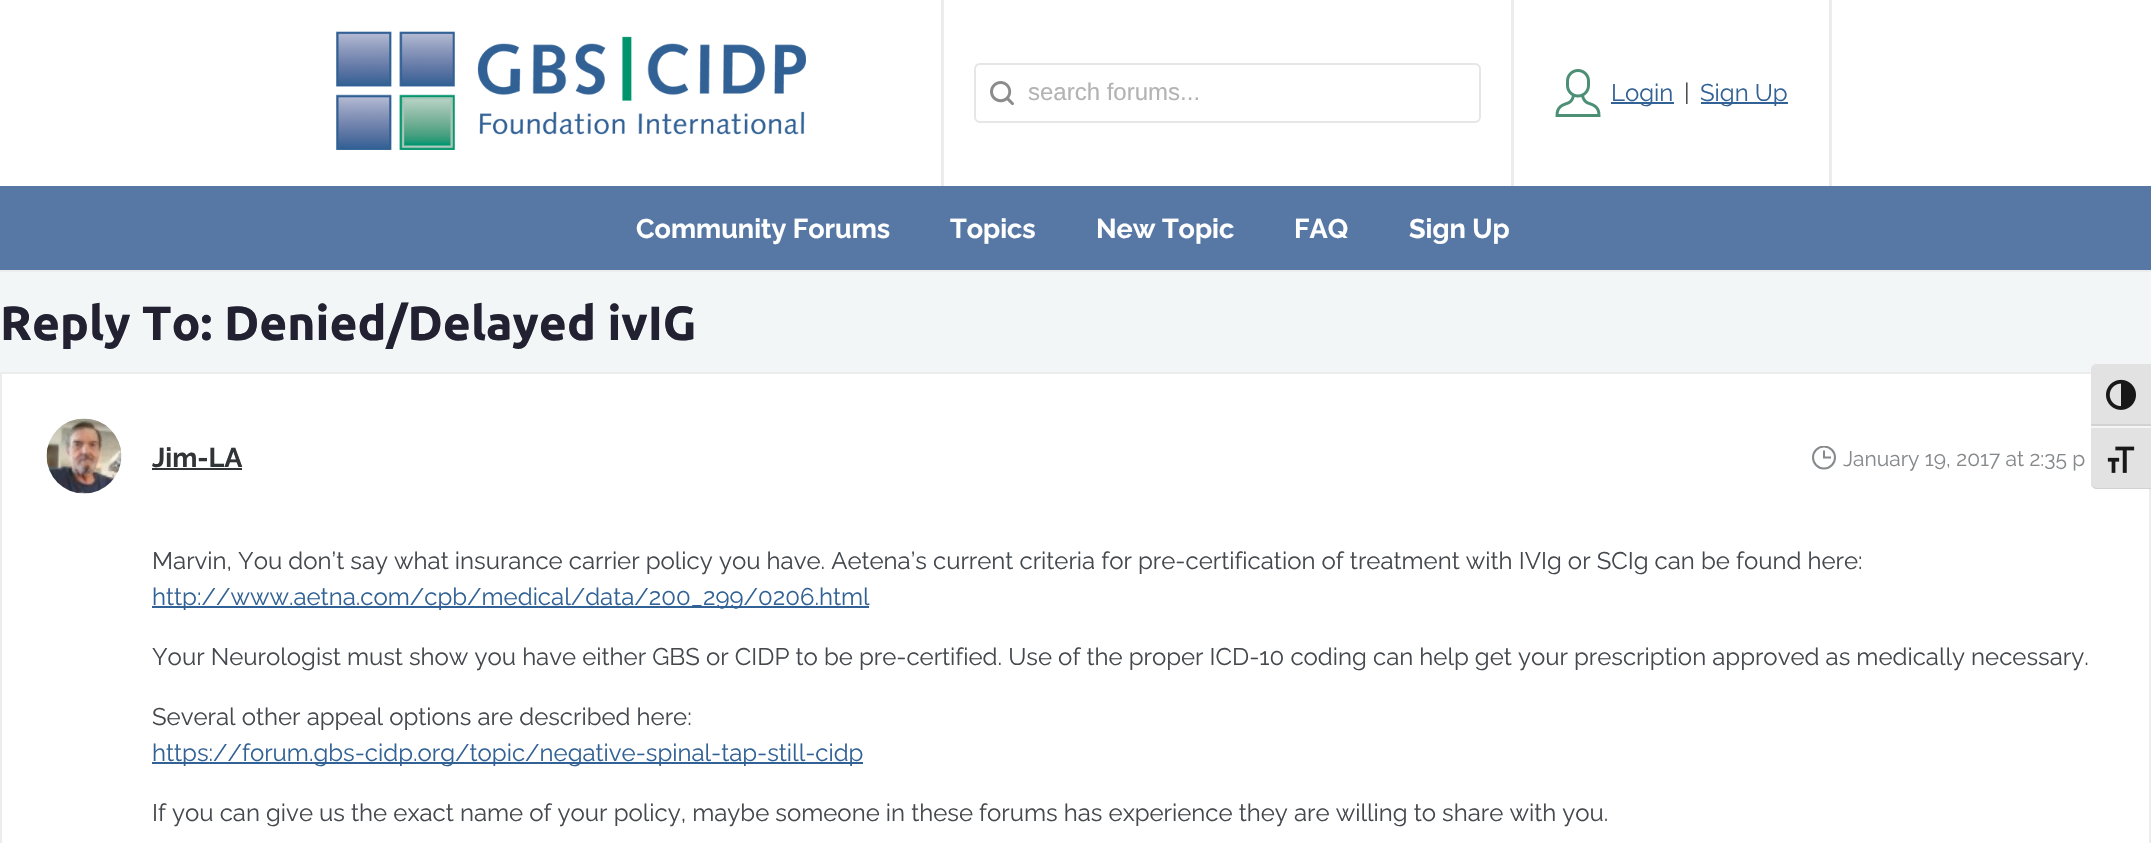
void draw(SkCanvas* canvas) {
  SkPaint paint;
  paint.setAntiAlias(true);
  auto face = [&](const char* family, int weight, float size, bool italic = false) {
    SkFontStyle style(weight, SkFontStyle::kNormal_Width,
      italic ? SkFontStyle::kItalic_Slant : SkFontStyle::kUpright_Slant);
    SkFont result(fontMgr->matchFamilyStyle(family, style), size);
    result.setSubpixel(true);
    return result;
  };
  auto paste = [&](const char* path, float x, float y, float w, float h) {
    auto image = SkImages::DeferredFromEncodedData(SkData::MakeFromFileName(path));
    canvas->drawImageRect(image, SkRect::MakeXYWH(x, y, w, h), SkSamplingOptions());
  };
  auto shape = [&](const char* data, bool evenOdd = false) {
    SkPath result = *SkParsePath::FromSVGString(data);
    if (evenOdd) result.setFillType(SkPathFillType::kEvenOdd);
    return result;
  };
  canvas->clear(0xfff2f6f7);
  {
    const struct { float x, y, w, h; SkColor color; } items[] = {
      {0, 0, 2151, 186, 0xffffffff},
      {0, 270, 2151, 2, 0xffececec},
      {941, 0, 3, 186, 0xffececec},
    };
    for (auto [x, y, w, h, color] : items) {
      paint.setColor(color);
      canvas->drawRect(SkRect::MakeXYWH(x, y, w, h), paint);
    }
  }
  paste("img/1.png", 336, 31, 470, 119);
  canvas->drawRect(SkRect::MakeXYWH(1511, 0, 3, 186), paint);
  paste("img/2.png", 990, 81, 24, 24);
  paint.setStroke(true);
  paint.setStrokeWidth(2);
  paint.setColor(0xffe6e6e6);
  canvas->drawRoundRect(SkRect::MakeXYWH(975, 64, 505, 58), 5, 5, paint);
  paint.setStroke(false);
  paint.setColor(0xffececec);
  canvas->drawRect(SkRect::MakeXYWH(1829, 0, 3, 186), paint);
  paste("img/3.png", 1555, 69, 46, 48);
  {
    const struct { float x, y, w, h; SkColor color; } items[] = {
      {1611, 102, 63, 2, 0xff326295},
      {1701, 102, 87, 2, 0xff326295},
      {0, 186, 2151, 84, 0xff5778a4},
    };
    for (auto [x, y, w, h, color] : items) {
      paint.setColor(color);
      canvas->drawRect(SkRect::MakeXYWH(x, y, w, h), paint);
    }
  }
  paint.setColor(0xffffffff);
  canvas->drawRect(SkRect::MakeXYWH(1, 373, 2149, 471), paint);
  paint.setStroke(true);
  paint.setColor(0xffececec);
  canvas->drawRect(SkRect::MakeXYWH(1, 373, 2149, 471), paint);
  paste("img/4.png", 46, 418, 76, 76);
  paint.setStroke(false);
  paint.setColor(0xff323538);
  canvas->drawRect(SkRect::MakeXYWH(152, 468, 90, 2), paint);
  canvas->save();
  canvas->clipRect(SkRect::MakeXYWH(1812, 446, 24, 24));
  paint.setStroke(true);
  paint.setColor(0xff86898b);
  canvas->drawCircle(1824, 457.5f, 11, paint);
  canvas->restore();
  paint.setStrokeCap(SkPaint::kSquare_Cap);
  canvas->drawPath(shape("M1824 451.5V457.5H1830"), paint);
  paint.setStroke(false);
  paint.setColor(0xff326295);
  canvas->drawRect(SkRect::MakeXYWH(152, 606, 717, 2), paint);
  canvas->drawRect(SkRect::MakeXYWH(152, 762, 711, 2), paint);
  paint.setColor(0xffe2e2e2);
  canvas->drawPath(shape("M2097 363H2151V426H2091V369C2091 365.5 2093.5 363 2097 363Z"), paint);
  paint.setColor(0xfff5f5f5);
  canvas->drawPath(shape("M2097 364H2151V363H2097C2094 363 2091 366 2091 369C2091 367 2094 364 2097 364Z"), paint);
  paint.setColor(0xffd2d2d2);
  canvas->drawRect(SkRect::MakeXYWH(2091, 424, 60, 2), paint);
  paste("img/5.png", 2106, 379, 30, 31);
  paint.setColor(0xffe2e2e2);
  canvas->drawPath(shape("M2091 426H2151V489H2097C2093.5 489 2091 486.5 2091 483Z"), paint);
  paint.setColor(0xfff5f5f5);
  canvas->drawRect(SkRect::MakeXYWH(2091, 426, 60, 2), paint);
  paint.setColor(0xffd2d2d2);
  canvas->drawPath(shape("M2151 489V488H2097C2094 488 2091 485 2091 483C2091 486 2094 489 2097 489Z"), paint);
  paste("img/6.png", 2107, 446, 28, 27);
  auto f0 = face("Liberation Sans", 400, 24);
  paint.setColor(0xffb3b3b3);
  canvas->drawString("search forums...", 1028, 100, f0, paint);
  auto f1 = face("Raleway", 400, 24);
  paint.setColor(0xff326295);
  canvas->drawString("Login", 1611, 101, f1, paint);
  paint.setColor(0xff45494d);
  canvas->drawString("|", 1684, 101, f1, paint);
  paint.setColor(0xff326295);
  canvas->drawString("Sign Up", 1700, 101, f1, paint);
  auto f2 = face("Raleway", 700, 27);
  paint.setColor(0xffffffff);
  {
    const struct { const char* s; float x, y; } items[] = {
      {"Community Forums", 636, 238},
      {"Topics", 950, 238},
      {"New Topic", 1096, 238},
      {"FAQ", 1294, 238},
      {"Sign Up", 1409, 238},
    };
    for (auto [s, x, y] : items) {
      canvas->drawString(s, x, y, f2, paint);
    }
  }
  auto f3 = face("Ubuntu", 700, 48);
  paint.setColor(0xff222132);
  canvas->drawString("Reply To: Denied/Delayed ivIG", 0, 340, f3, paint);
  paint.setColor(0xff323538);
  canvas->drawString("Jim-LA", 152, 467, f2, paint);
  auto f4 = face("Raleway", 400, 21);
  paint.setColor(0xff86898b);
  canvas->drawString("January 19, 2017 at 2:35 p", 1843, 466, f4, paint);
  paint.setColor(0xff45494d);
  canvas->drawString("Marvin, You don’t say what insurance carrier policy you have. Aetena’s current criteria for pre-certification of treatment with IVIg or SCIg can be found here:", 152, 569, f1, paint);
  paint.setColor(0xff326295);
  canvas->drawString("http://www.aetna.com/cpb/medical/data/200_299/0206.html", 152, 605, f1, paint);
  paint.setColor(0xff45494d);
  canvas->drawString("Your Neurologist must show you have either GBS or CIDP to be pre-certified. Use of the proper ICD-10 coding can help get your prescription approved as medically necessary.", 152, 665, f1, paint);
  canvas->drawString("Several other appeal options are described here:", 152, 725, f1, paint);
  paint.setColor(0xff326295);
  canvas->drawString("https://forum.gbs-cidp.org/topic/negative-spinal-tap-still-cidp", 152, 761, f1, paint);
  paint.setColor(0xff45494d);
  canvas->drawString("If you can give us the exact name of your policy, maybe someone in these forums has experience they are willing to share with you.", 152, 821, f1, paint);
}
